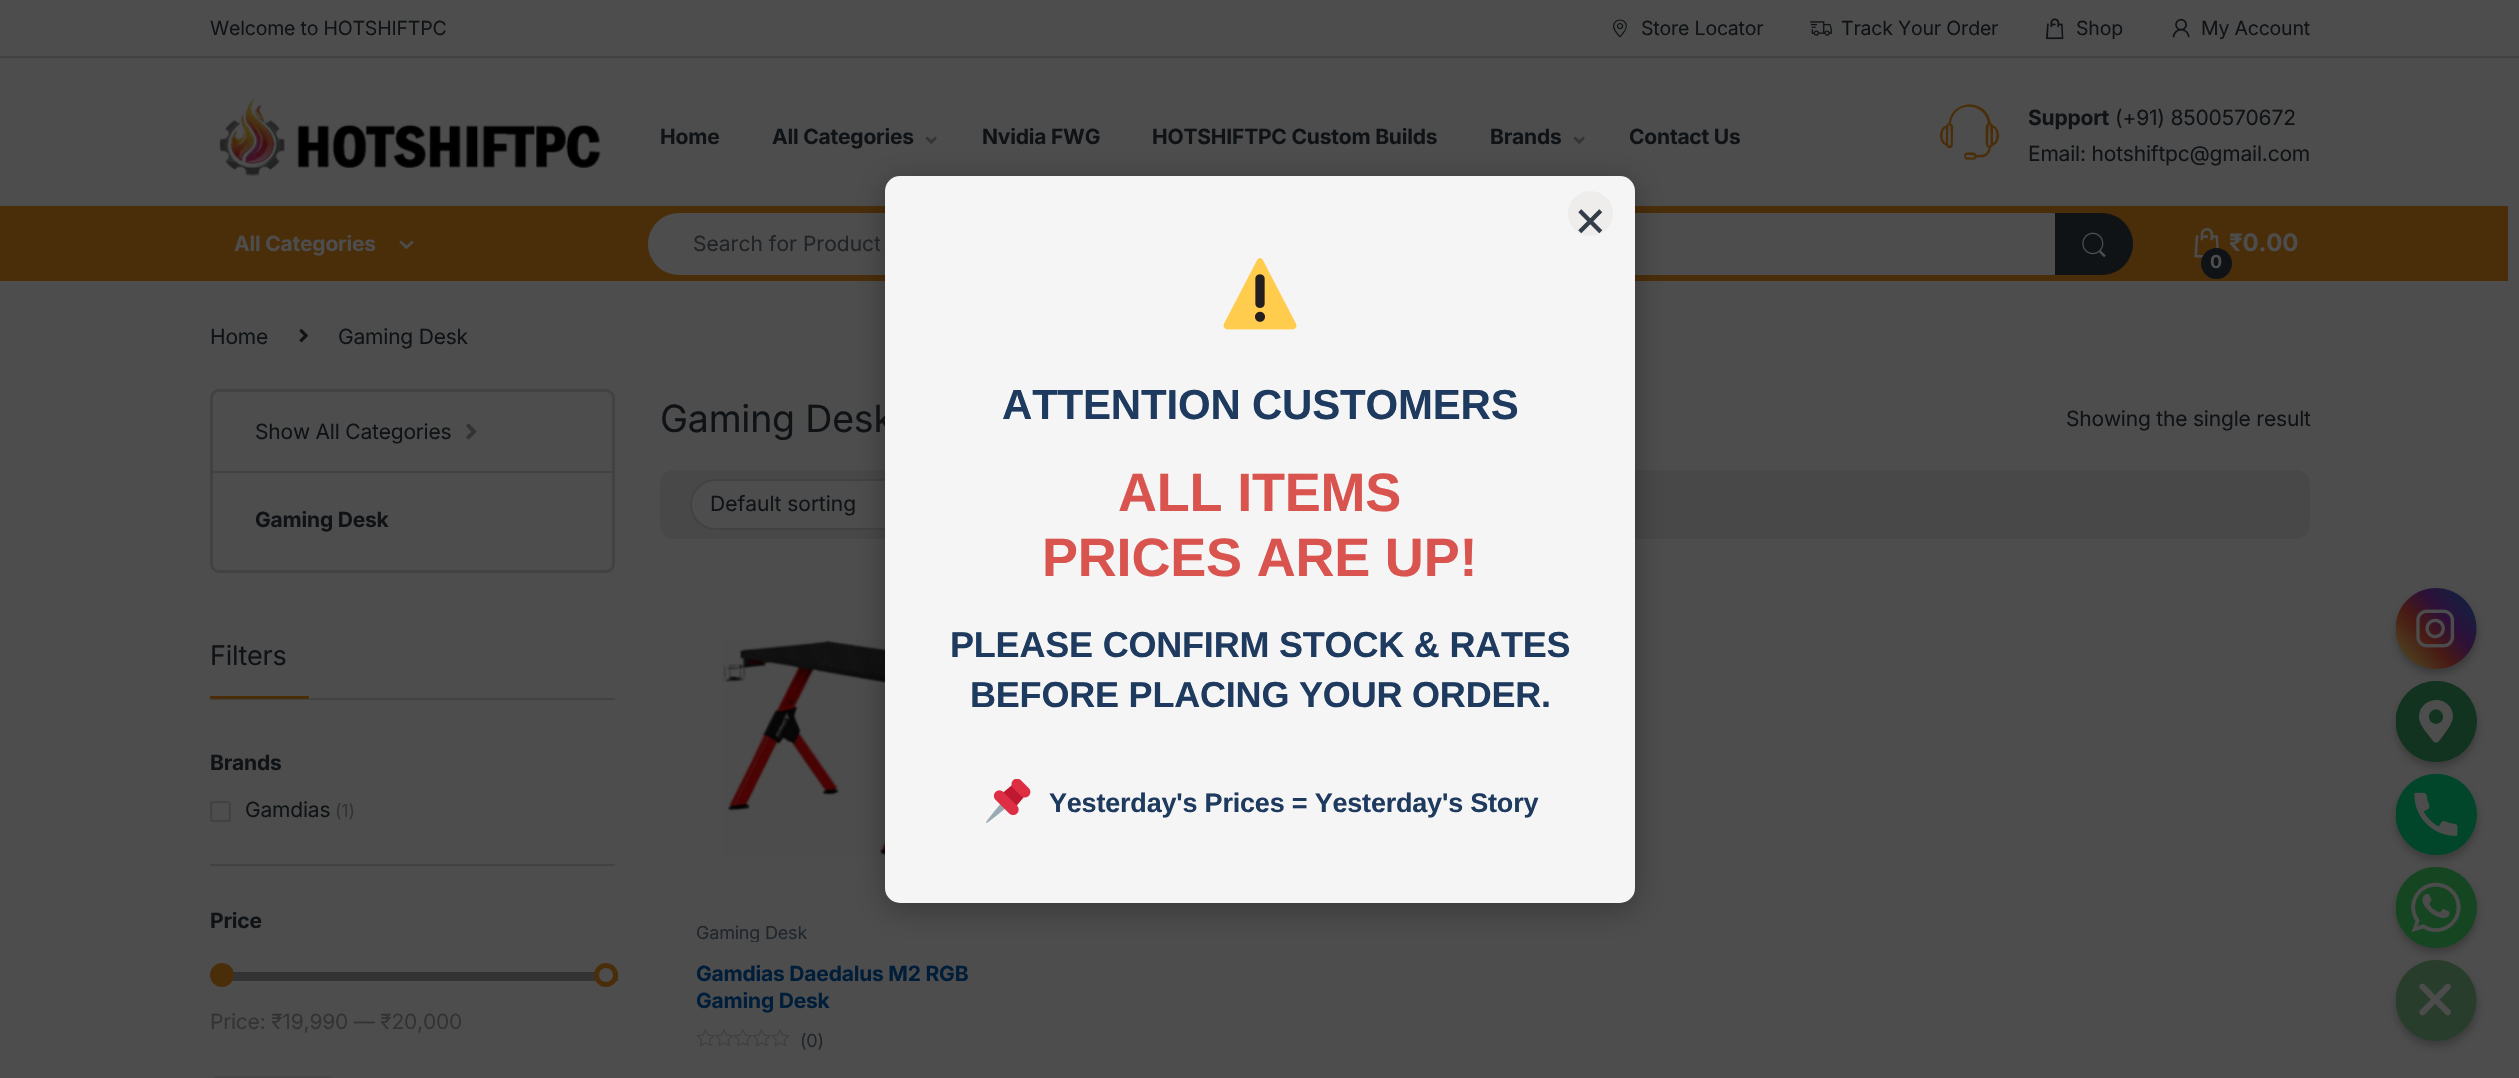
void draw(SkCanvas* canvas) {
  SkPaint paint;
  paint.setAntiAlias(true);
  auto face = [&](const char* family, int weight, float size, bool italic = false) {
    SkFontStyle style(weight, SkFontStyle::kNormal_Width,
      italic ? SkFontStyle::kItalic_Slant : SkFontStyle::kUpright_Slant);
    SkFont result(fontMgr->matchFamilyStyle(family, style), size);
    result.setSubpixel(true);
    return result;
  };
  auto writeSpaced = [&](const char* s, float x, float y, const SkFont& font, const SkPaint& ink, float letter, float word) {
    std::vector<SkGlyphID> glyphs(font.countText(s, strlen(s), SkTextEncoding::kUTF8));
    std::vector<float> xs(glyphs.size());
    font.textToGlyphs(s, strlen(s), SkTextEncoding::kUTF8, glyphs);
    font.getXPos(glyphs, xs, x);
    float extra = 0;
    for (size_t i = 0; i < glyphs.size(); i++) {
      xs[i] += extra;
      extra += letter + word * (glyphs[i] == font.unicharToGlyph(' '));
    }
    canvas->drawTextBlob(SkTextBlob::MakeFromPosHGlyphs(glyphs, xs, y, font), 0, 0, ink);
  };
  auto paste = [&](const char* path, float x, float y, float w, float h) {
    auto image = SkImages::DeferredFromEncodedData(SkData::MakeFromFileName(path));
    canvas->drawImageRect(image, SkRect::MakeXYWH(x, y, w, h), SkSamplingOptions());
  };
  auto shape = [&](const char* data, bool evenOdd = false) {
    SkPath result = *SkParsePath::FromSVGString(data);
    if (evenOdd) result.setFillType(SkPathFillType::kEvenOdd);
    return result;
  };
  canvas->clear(0xff4d4d4d);
  paint.setColor(0xff424242);
  canvas->drawRect(SkRect::MakeXYWH(0, 56, 2519, 2), paint);
  paste("img/1.png", 1613, 19, 14, 19);
  paste("img/2.png", 1810, 21, 22, 15);
  paste("img/3.png", 2046, 18, 18, 22);
  paste("img/4.png", 2172, 18, 18, 20);
  paste("img/5.png", 219, 99, 382, 77);
  paste("img/6.png", 925, 136, 12, 8);
  paste("img/6.png", 1573, 136, 12, 8);
  paste("img/7.png", 1939, 104, 61, 56);
  paint.setColor(0xff4a2e0a);
  canvas->drawRect(SkRect::MakeXYWH(0, 206, 2508, 75), paint);
  paste("img/8.png", 399, 240, 15, 10);
  paint.setColor(0xff4d4d4d);
  canvas->drawPath(shape("M679 213H2057V275H679C662 275 648 261 648 244C648 227 662 213 679 213Z"), paint);
  paint.setColor(0xff0f1316);
  canvas->drawPath(shape("M2055 213H2102C2119 213 2133 227 2133 244C2133 261 2119 275 2102 275H2055Z"), paint);
  paste("img/9.png", 2082, 232, 24, 26);
  paste("img/10.png", 2194, 228, 25, 30);
  paste("img/11.png", 299, 329, 9, 14);
  paint.setStroke(true);
  paint.setStrokeWidth(3);
  paint.setColor(0xff424242);
  canvas->drawRoundRect(SkRect::MakeXYWH(211.5f, 390.5f, 402, 181), 7.5f, 7.5f, paint);
  paint.setStroke(false);
  canvas->drawRect(SkRect::MakeXYWH(213, 471, 399, 2), paint);
  paste("img/12.png", 466, 423, 11, 17);
  canvas->drawRect(SkRect::MakeXYWH(210, 698, 405, 2), paint);
  paint.setColor(0xff4a2e0a);
  canvas->drawRect(SkRect::MakeXYWH(210, 696, 99, 3), paint);
  paste("img/13.png", 210, 801, 21, 21);
  paint.setColor(0xff424242);
  canvas->drawRect(SkRect::MakeXYWH(210, 864, 405, 2), paint);
  paint.setColor(0xff333333);
  canvas->drawRect(SkRect::MakeXYWH(232, 972, 386, 9), paint);
  paint.setColor(0xff4a2e0a);
  canvas->drawCircle(222, 975, 12, paint);
  paint.setColor(0xff4d4d4d);
  canvas->drawCircle(606, 975, 9.5f, paint);
  paint.setStroke(true);
  paint.setStrokeWidth(5);
  paint.setColor(0xff4a2e0a);
  canvas->drawCircle(606, 975, 9.5f, paint);
  paint.setStrokeWidth(2);
  paint.setColor(0xff484747);
  canvas->drawRoundRect(SkRect::MakeXYWH(211, 1077, 123, 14), 11, 11, paint);
  paint.setStroke(false);
  paint.setColor(0xff484848);
  canvas->drawRoundRect(SkRect::MakeXYWH(660, 470, 1650, 69), 14, 14, paint);
  paint.setColor(0xff4d4d4d);
  canvas->drawRoundRect(SkRect::MakeXYWH(691, 480, 310, 49), 24.5f, 24.5f, paint);
  paint.setStroke(true);
  paint.setColor(0xff424242);
  canvas->drawRoundRect(SkRect::MakeXYWH(691, 480, 310, 49), 24.5f, 24.5f, paint);
  paste("img/14.png", 722, 639, 163, 218);
  paste("img/15.png", 696, 1029, 94, 18);
  paint.setStroke(false);
  paint.setColor(0x4d000000);
  paint.setMaskFilter(SkMaskFilter::MakeBlur(kNormal_SkBlurStyle, 15));
  canvas->drawRoundRect(SkRect::MakeXYWH(885, 182, 750, 727), 15, 15, paint);
  paint.setMaskFilter(nullptr);
  paint.setColor(0x40000000);
  paint.setMaskFilter(SkMaskFilter::MakeBlur(kNormal_SkBlurStyle, 4.5f));
  canvas->drawRoundRect(SkRect::MakeXYWH(2396, 593, 81, 81), 40.5f, 40.5f, paint);
  paint.setMaskFilter(nullptr);
  paste("img/18.png", 2396, 588, 81, 81);
  paint.setMaskFilter(SkMaskFilter::MakeBlur(kNormal_SkBlurStyle, 4.5f));
  canvas->drawRoundRect(SkRect::MakeXYWH(2396, 686, 81, 81), 40.5f, 40.5f, paint);
  paint.setMaskFilter(nullptr);
  paint.setColor(0xff11331f);
  canvas->drawCircle(2436.5f, 721.5f, 40.5f, paint);
  canvas->save();
  canvas->clipRect(SkRect::MakeXYWH(2396, 681, 81, 81));
  canvas->drawCircle(2436, 721.5f, 40.5f, paint);
  canvas->restore();
  paint.setColor(0xff4d4d4d);
  canvas->drawPath(shape("M2419 717C2419 700 2441 694 2450 707C2452 710 2453 713 2453 717C2452 724 2447 730 2443 736L2439 741C2437 743 2435 743 2433 741L2426 732C2423 728 2419 722 2419 717ZM2443 717C2443 726 2429 726 2429 717C2429 707 2443 707 2443 717Z", true), paint);
  paint.setColor(0x40000000);
  paint.setMaskFilter(SkMaskFilter::MakeBlur(kNormal_SkBlurStyle, 4.5f));
  canvas->drawRoundRect(SkRect::MakeXYWH(2396, 779, 81, 81), 40.5f, 40.5f, paint);
  paint.setMaskFilter(nullptr);
  paint.setColor(0xff01452a);
  canvas->drawCircle(2436.5f, 814.5f, 40.5f, paint);
  paste("img/19.png", 2396, 774, 81, 81);
  paint.setColor(0x40000000);
  paint.setMaskFilter(SkMaskFilter::MakeBlur(kNormal_SkBlurStyle, 4.5f));
  canvas->drawRoundRect(SkRect::MakeXYWH(2396, 872, 81, 81), 40.5f, 40.5f, paint);
  paint.setMaskFilter(nullptr);
  paint.setColor(0xff164522);
  canvas->drawCircle(2436.5f, 907.5f, 40.5f, paint);
  paste("img/20.png", 2396, 867, 81, 81);
  paint.setColor(0x40000000);
  paint.setMaskFilter(SkMaskFilter::MakeBlur(kNormal_SkBlurStyle, 4.5f));
  canvas->drawRoundRect(SkRect::MakeXYWH(2396, 965, 81, 81), 40.5f, 40.5f, paint);
  paint.setMaskFilter(nullptr);
  paste("img/21.png", 2396, 960, 81, 81);
  auto f0 = face("Inter", 400, 19.5f);
  paint.setColor(0xff0f1316);
  {
    const struct { const char* s; float x, y; } items[] = {
      {"Welcome to HOTSHIFTPC", 210, 35},
      {"Store Locator", 1641, 35},
      {"Track Your Order", 1841, 35},
      {"Shop", 2076, 35},
      {"My Account", 2201, 35},
    };
    for (auto [s, x, y] : items) {
      writeSpaced(s, x, y, f0, paint, -0.2f, 0);
    }
  }
  auto f1 = face("Inter", 700, 21);
  {
    const struct { const char* s; float x, y; } items[] = {
      {"Home", 660, 144},
      {"All Categories", 772, 144},
      {"Nvidia FWG", 982, 144},
      {"HOTSHIFTPC Custom Builds", 1152, 144},
      {"Brands", 1490, 144},
      {"Contact Us", 1629, 144},
      {"Support", 2028, 125},
    };
    for (auto [s, x, y] : items) {
      writeSpaced(s, x, y, f1, paint, -0.2f, 0);
    }
  }
  auto f2 = face("Inter", 400, 21);
  writeSpaced("(+91) 8500570672", 2115, 125, f2, paint, -0.2f, 0);
  writeSpaced("Email: hotshiftpc@gmail.com", 2028, 161, f2, paint, -0.2f, 0);
  paint.setColor(0xff4d4d4d);
  writeSpaced("All Categories", 234, 251, f1, paint, -0.2f, 0);
  paint.setColor(0xff202326);
  canvas->drawString("Search for Product", 693, 251, f2, paint);
  auto f3 = face("Inter", 700, 24);
  paint.setColor(0xff4d4d4d);
  writeSpaced("₹0.00", 2229, 251, f3, paint, -0.2f, 0);
  paint.setColor(0xff0f1316);
  canvas->drawCircle(2216.5f, 263.5f, 15.5f, paint);
  auto f4 = face("Inter", 700, 18);
  paint.setColor(0xff4d4d4d);
  writeSpaced("0", 2210, 268, f4, paint, -0.2f, 0);
  paint.setColor(0xff0f1316);
  {
    const struct { const char* s; float x, y; } items[] = {
      {"Home", 210, 344},
      {"Gaming Desk", 338, 344},
      {"Show All Categories", 255, 439},
    };
    for (auto [s, x, y] : items) {
      writeSpaced(s, x, y, f2, paint, -0.2f, 0);
    }
  }
  writeSpaced("Gaming Desk", 255, 527, f1, paint, -0.2f, 0);
  auto f5 = face("Inter", 400, 27);
  writeSpaced("Filters", 210, 665, f5, paint, -0.2f, 0);
  writeSpaced("Brands", 210, 770, f1, paint, -0.2f, 0);
  writeSpaced("Gamdias", 245, 817, f2, paint, -0.2f, 0);
  auto f6 = face("Inter", 400, 18);
  paint.setColor(0xff333333);
  writeSpaced("(1)", 335, 817, f6, paint, -0.2f, 0);
  paint.setColor(0xff0f1316);
  writeSpaced("Price", 210, 928, f1, paint, -0.2f, 0);
  paint.setColor(0xff333333);
  writeSpaced("Price: ₹19,990 — ₹20,000", 210, 1029, f2, paint, -0.2f, 0);
  auto f7 = face("Inter", 400, 37.5f);
  paint.setColor(0xff0f1316);
  writeSpaced("Gaming Desk", 660, 432, f7, paint, -0.2f, 0);
  writeSpaced("Showing the single result", 2066, 426, f2, paint, -0.2f, 0);
  canvas->drawString("Default sorting", 710, 511, f2, paint);
  canvas->save();
  canvas->clipRect(SkRect::MakeXYWH(696, 924, 341, 18));
  paint.setColor(0xff1f262c);
  writeSpaced("Gaming Desk", 696, 939, f6, paint, -0.2f, 0);
  canvas->restore();
  paint.setColor(0xff001d39);
  writeSpaced("Gamdias Daedalus M2 RGB", 696, 981, f1, paint, -0.2f, 0);
  writeSpaced("Gaming Desk", 696, 1008, f1, paint, -0.2f, 0);
  paint.setColor(0xff1f262c);
  writeSpaced("(0)", 800, 1047, f6, paint, -0.2f, 0);
  paint.setColor(0xfff5f5f5);
  canvas->drawRoundRect(SkRect::MakeXYWH(885, 176, 750, 727), 15, 15, paint);
  paint.setColor(0xffefecec);
  canvas->drawCircle(1590.5f, 213.5f, 22.5f, paint);
  auto f8 = face("Inter", 400, 52);
  paint.setColor(0xff333e48);
  canvas->drawString("×", 1573, 236, f8, paint);
  paste("img/16.png", 1223, 258, 74, 72);
  auto f9 = face("Liberation Sans", 700, 42);
  paint.setColor(0xff1e3a5f);
  writeSpaced("ATTENTION CUSTOMERS", 1002, 419, f9, paint, -0.2f, 0);
  auto f10 = face("Liberation Sans", 700, 54);
  paint.setColor(0xffd9534f);
  writeSpaced("ALL ITEMS", 1118, 511, f10, paint, -0.2f, 0);
  writeSpaced("PRICES ARE UP!", 1042, 576, f10, paint, -0.2f, 0);
  auto f11 = face("Liberation Sans", 700, 36);
  paint.setColor(0xff1e3a5f);
  writeSpaced("PLEASE CONFIRM STOCK & RATES", 950, 657, f11, paint, -0.2f, 0);
  writeSpaced("BEFORE PLACING YOUR ORDER.", 970, 707, f11, paint, -0.2f, 0);
  paste("img/17.png", 986, 779, 45, 45);
  auto f12 = face("Liberation Sans", 700, 27);
  writeSpaced("Yesterday's Prices = Yesterday's Story", 1049, 812, f12, paint, -0.2f, 0);
}
